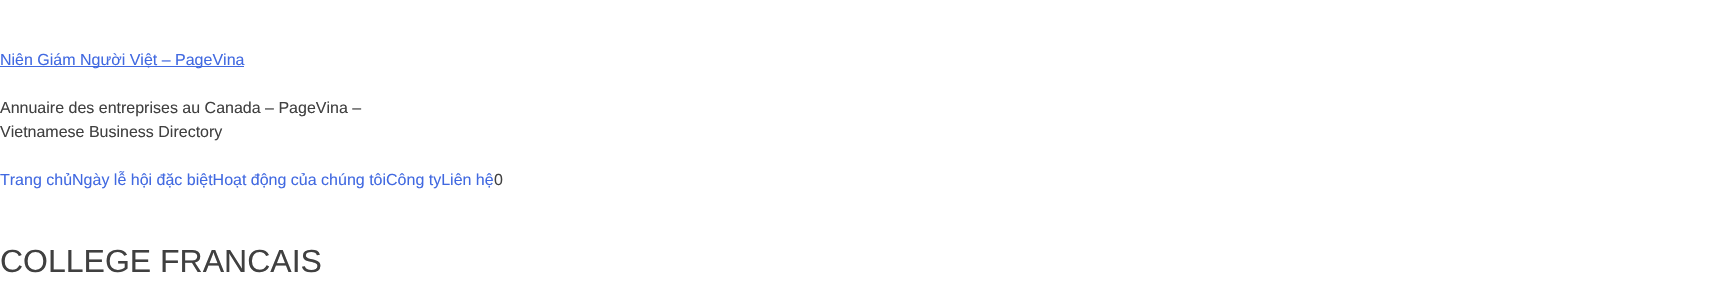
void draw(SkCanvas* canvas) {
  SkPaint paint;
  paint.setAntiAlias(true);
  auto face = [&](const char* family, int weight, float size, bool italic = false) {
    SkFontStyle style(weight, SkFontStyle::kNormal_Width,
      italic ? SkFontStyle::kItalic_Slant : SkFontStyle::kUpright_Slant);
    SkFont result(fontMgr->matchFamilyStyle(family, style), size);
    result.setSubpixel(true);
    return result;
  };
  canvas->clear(0xffffffff);
  paint.setColor(0xff4169e1);
  canvas->drawRect(SkRect::MakeXYWH(0, 66, 244, 1), paint);
  auto f0 = face("Liberation Sans", 400, 16);
  canvas->drawString("Niên Giám Người Việt – PageVina", 0, 65, f0, paint);
  paint.setColor(0xff404040);
  canvas->drawString("Annuaire des entreprises au Canada – PageVina –", 0, 113, f0, paint);
  canvas->drawString("Vietnamese Business Directory", 0, 137, f0, paint);
  paint.setColor(0xff4169e1);
  canvas->drawString("Trang chủNgày lễ hội đặc biệtHoạt động của chúng tôiCông tyLiên hệ", 0, 185, f0, paint);
  paint.setColor(0xff404040);
  canvas->drawString("0", 494, 185, f0, paint);
  auto f1 = face("Liberation Sans", 400, 32);
  canvas->drawString("COLLEGE FRANCAIS", 0, 272, f1, paint);
}
